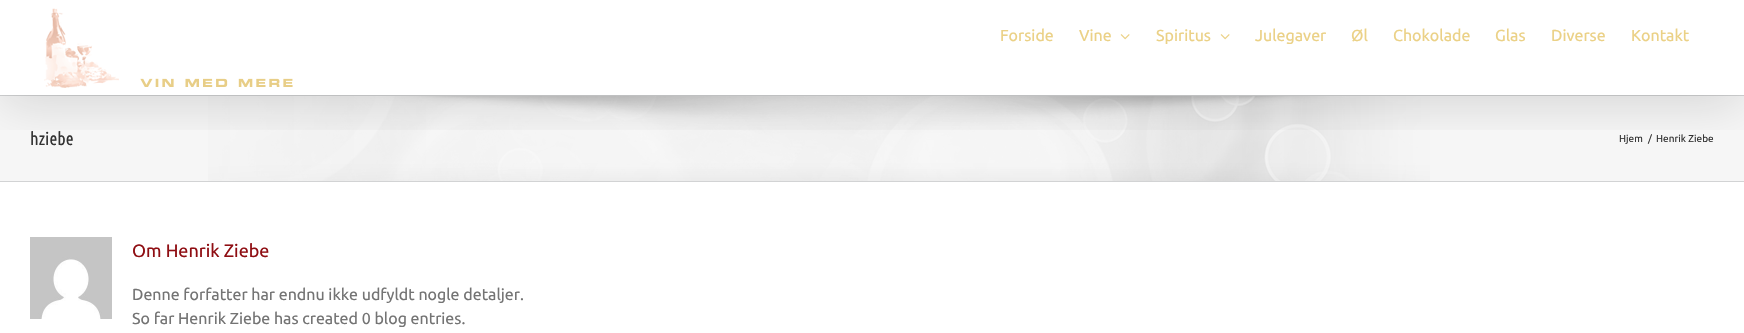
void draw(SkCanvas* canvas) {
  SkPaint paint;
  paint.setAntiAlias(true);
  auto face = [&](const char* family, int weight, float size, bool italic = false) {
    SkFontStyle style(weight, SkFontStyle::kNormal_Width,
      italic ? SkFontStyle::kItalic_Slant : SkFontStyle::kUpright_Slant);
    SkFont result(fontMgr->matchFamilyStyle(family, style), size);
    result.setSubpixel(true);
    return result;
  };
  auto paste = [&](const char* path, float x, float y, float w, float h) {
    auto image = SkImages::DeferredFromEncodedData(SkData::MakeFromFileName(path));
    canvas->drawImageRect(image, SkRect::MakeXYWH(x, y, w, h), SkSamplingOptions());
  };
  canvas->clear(0xffffffff);
  paint.setColor(0xfff6f6f6);
  canvas->drawRect(SkRect::MakeXYWH(0, 96, 1744, 85), paint);
  paste("img/3.png", 208, 96, 1222, 85);
  paint.setColor(0xffd2d3d4);
  canvas->drawRect(SkRect::MakeXYWH(0, 95, 1744, 1), paint);
  canvas->save();
  canvas->clipRect(SkRect::MakeXYWH(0, 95, 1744, 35));
  paint.setColor(0x24000000);
  paint.setMaskFilter(SkMaskFilter::MakeBlur(kNormal_SkBlurStyle, 25));
  canvas->drawRect(SkRect::MakeXYWH(2, 12, 1740, 91), paint);
  paint.setMaskFilter(nullptr);
  canvas->restore();
  paste("img/1.png", 44, 8, 249, 80);
  paste("img/2.png", 1120, 34, 10, 6);
  paste("img/2.png", 1220, 34, 10, 6);
  paint.setColor(0xffd2d3d4);
  canvas->drawRect(SkRect::MakeXYWH(0, 181, 1744, 1), paint);
  paste("img/4.png", 30, 237, 82, 82);
  auto f0 = face("Ubuntu", 400, 16);
  paint.setColor(0xffebd186);
  {
    const struct { const char* s; float x, y; } items[] = {
      {"Forside", 1000, 41},
      {"Vine", 1079, 41},
      {"Spiritus", 1156, 41},
      {"Julegaver", 1255, 41},
      {"Øl", 1351, 41},
      {"Chokolade", 1393, 41},
      {"Glas", 1495, 41},
      {"Diverse", 1551, 41},
      {"Kontakt", 1631, 41},
    };
    for (auto [s, x, y] : items) {
      canvas->drawString(s, x, y, f0, paint);
    }
  }
  auto f1 = face("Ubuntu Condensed", 400, 18);
  paint.setColor(0xff333333);
  canvas->drawString("hziebe", 30, 145, f1, paint);
  auto f2 = face("Ubuntu", 400, 10);
  {
    const struct { const char* s; float x, y; } items[] = {
      {"Hjem", 1619, 142},
      {"/", 1648, 142},
      {"Henrik Ziebe", 1656, 142},
    };
    for (auto [s, x, y] : items) {
      canvas->drawString(s, x, y, f2, paint);
    }
  }
  auto f3 = face("Ubuntu", 400, 18);
  paint.setColor(0xff8f0e13);
  canvas->drawString("Om Henrik Ziebe", 132, 257, f3, paint);
  paint.setColor(0xff747474);
  canvas->drawString("Denne forfatter har endnu ikke udfyldt nogle detaljer.", 132, 300, f0, paint);
  canvas->drawString("So far Henrik Ziebe has created 0 blog entries.", 132, 324, f0, paint);
}
